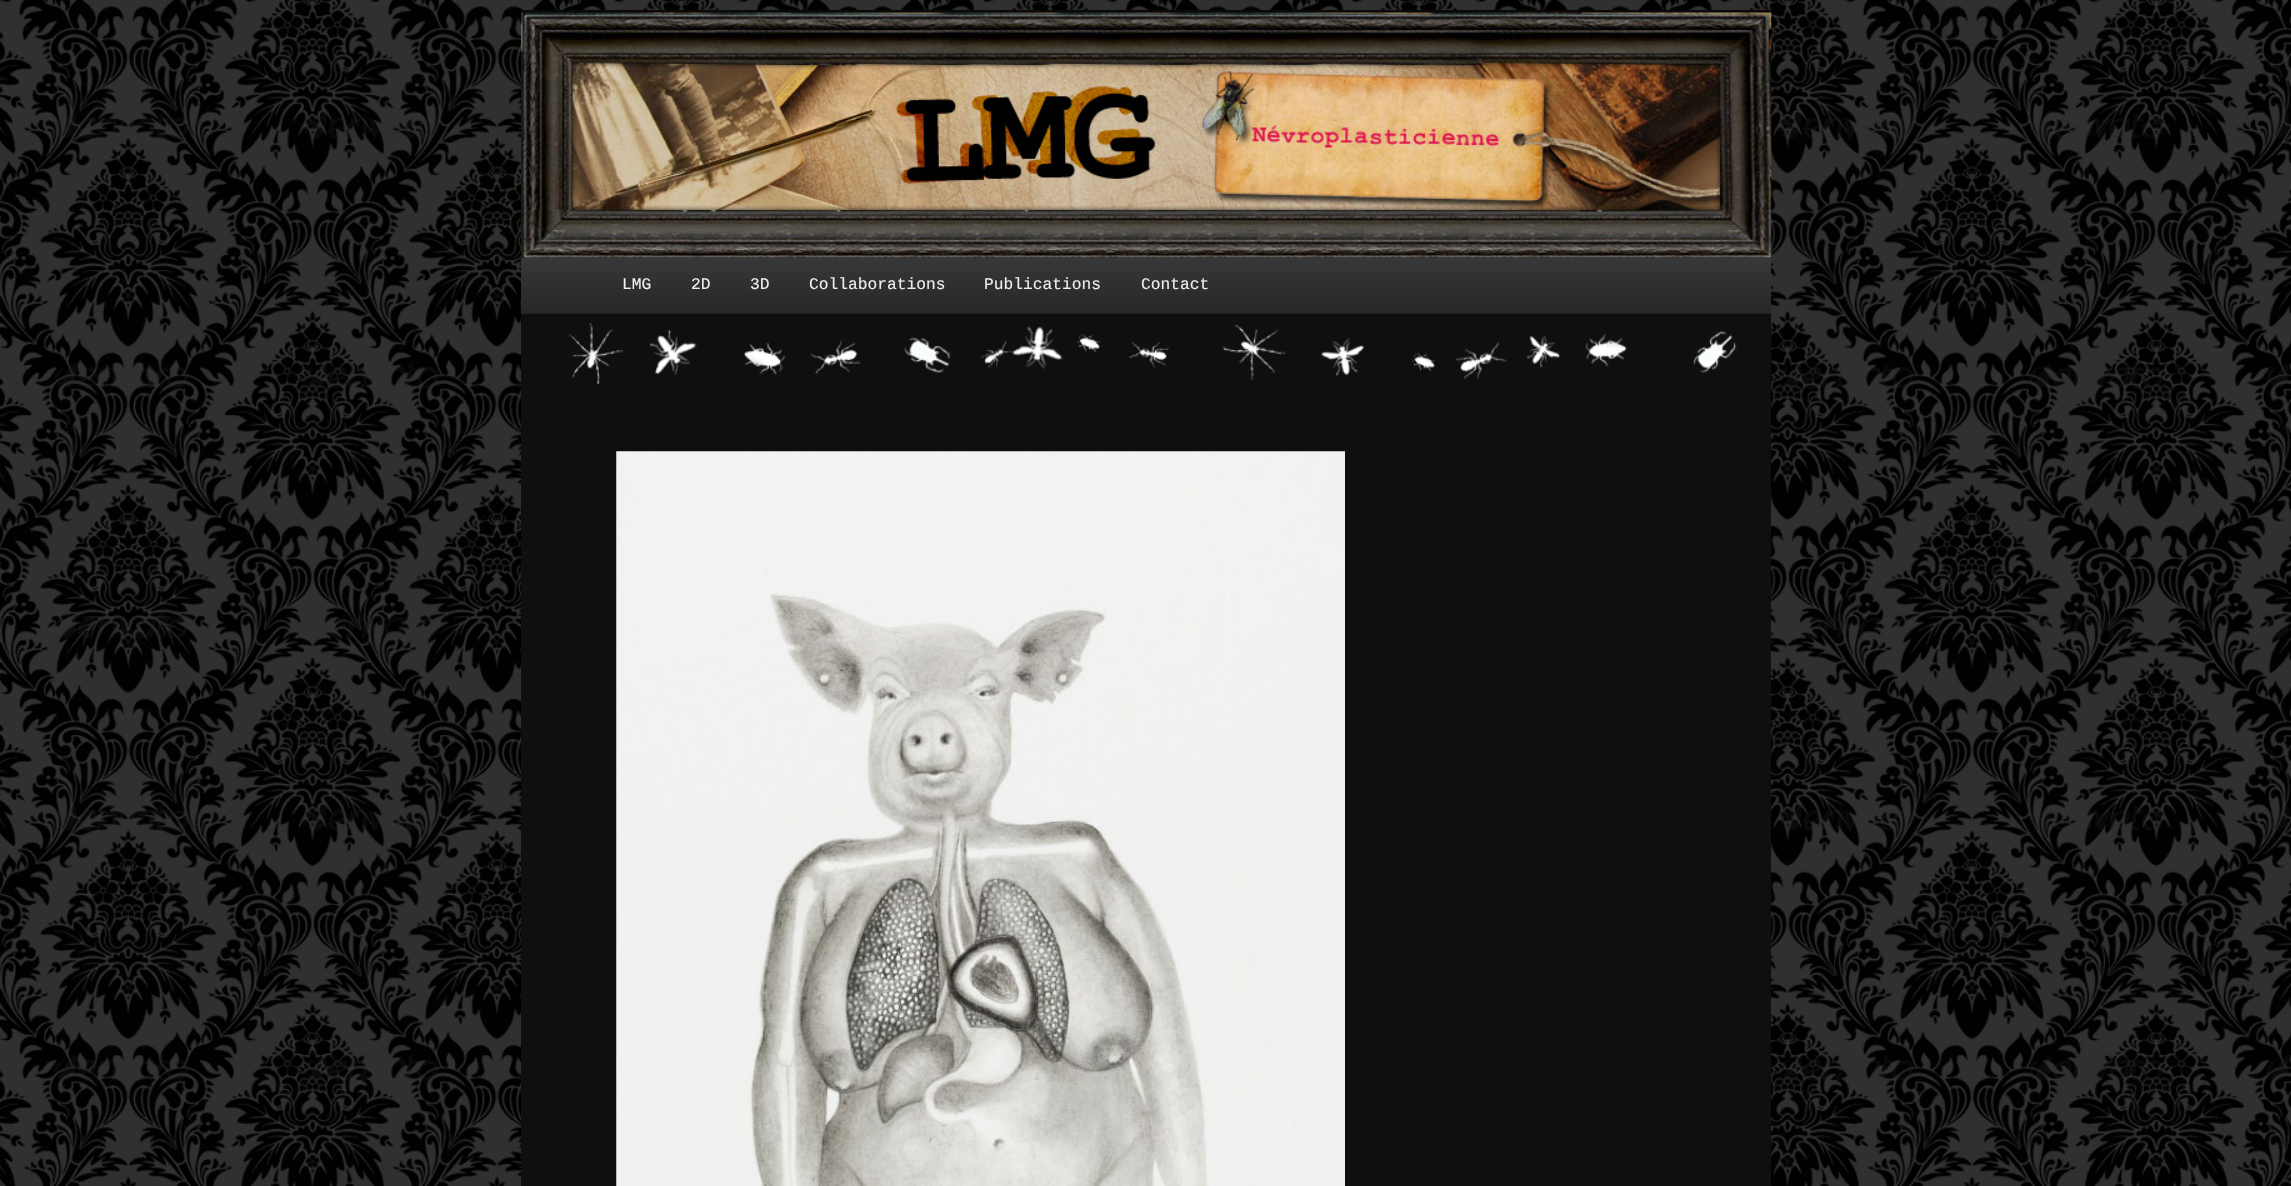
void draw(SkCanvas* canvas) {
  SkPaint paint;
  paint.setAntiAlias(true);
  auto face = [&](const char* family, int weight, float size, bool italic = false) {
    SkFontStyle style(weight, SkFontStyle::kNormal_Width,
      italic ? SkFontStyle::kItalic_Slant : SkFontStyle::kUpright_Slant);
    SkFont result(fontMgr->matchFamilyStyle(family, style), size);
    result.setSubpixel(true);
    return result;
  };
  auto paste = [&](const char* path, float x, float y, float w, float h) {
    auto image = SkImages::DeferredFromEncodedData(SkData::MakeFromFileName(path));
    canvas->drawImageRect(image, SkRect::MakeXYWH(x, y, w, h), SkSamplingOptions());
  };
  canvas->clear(0xffffffff);
  paste("img/1.png", 0, 0, 2291, 1186);
  paint.setColor(0xff0f0f0f);
  canvas->drawRect(SkRect::MakeXYWH(521, 13, 1250, 1173), paint);
  paint.setColor(0xff0a0a0a);
  canvas->drawRect(SkRect::MakeXYWH(521, 10, 1250, 3), paint);
  paste("img/2.png", 521, 12, 1251, 246);
  {
    const SkColor colors[] = {0xff383838, 0xff272727};
    const float stops[] = {0, 1};
    const SkPoint ends[] = {{1146, 257}, {1146, 313}};
    paint.setShader(SkGradientShader::MakeLinear(ends, colors, stops, 2, SkTileMode::kClamp));
    paint.setAlpha(255);
  }
  canvas->drawRect(SkRect::MakeXYWH(521, 258, 1250, 55), paint);
  paint.setShader(nullptr);
  paint.setColor(0xff222222);
  canvas->drawRect(SkRect::MakeXYWH(521, 313, 1250, 1), paint);
  paste("img/3.png", 568, 321, 1204, 63);
  paste("img/4.png", 616, 451, 729, 735);
  auto f0 = face("Liberation Mono", 400, 16.25f);
  paint.setColor(0xffeeeeee);
  {
    const struct { const char* s; float x, y; } items[] = {
      {"LMG", 622, 289},
      {"2D", 691, 289},
      {"3D", 750, 289},
      {"Collaborations", 809, 289},
      {"Publications", 984, 289},
      {"Contact", 1141, 289},
    };
    for (auto [s, x, y] : items) {
      canvas->drawString(s, x, y, f0, paint);
    }
  }
}
